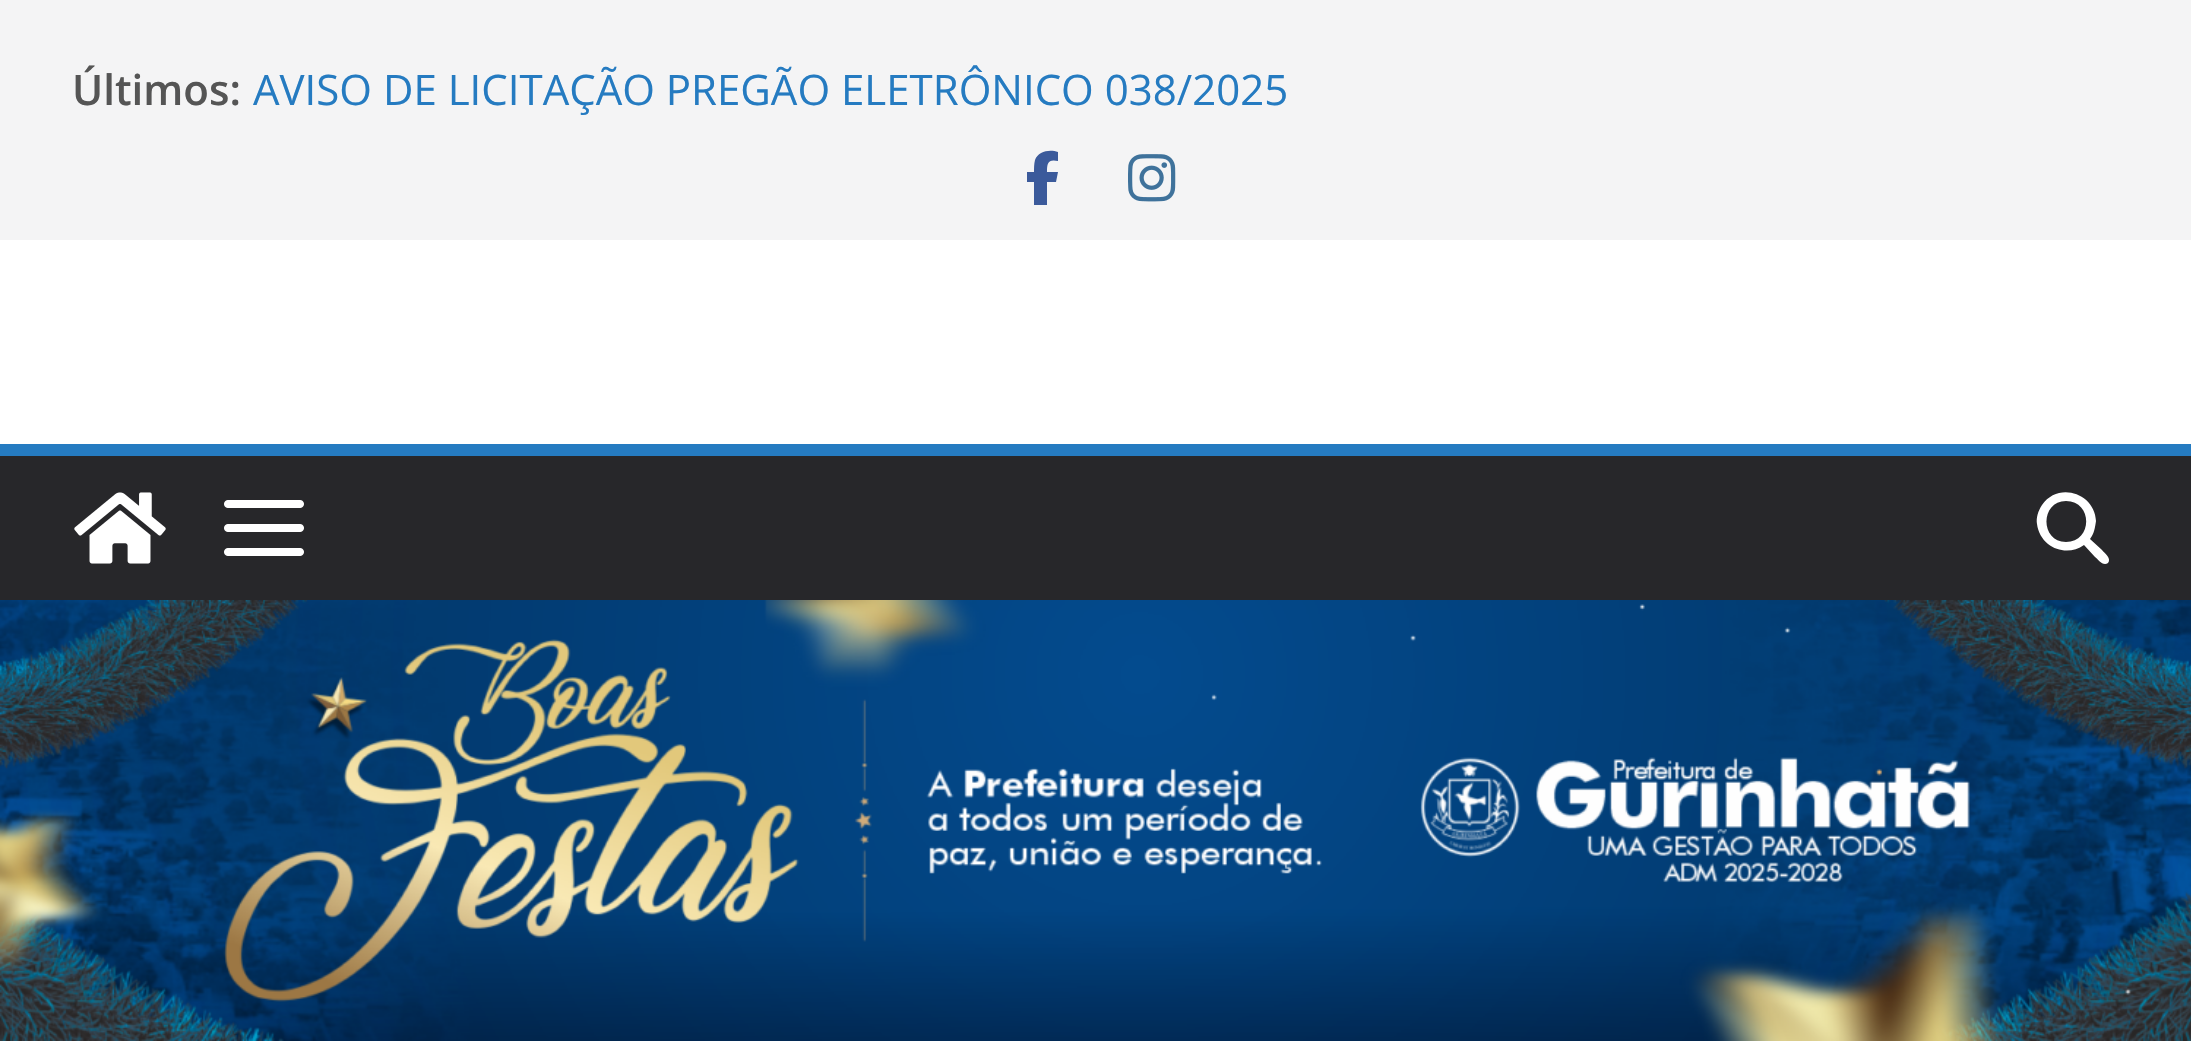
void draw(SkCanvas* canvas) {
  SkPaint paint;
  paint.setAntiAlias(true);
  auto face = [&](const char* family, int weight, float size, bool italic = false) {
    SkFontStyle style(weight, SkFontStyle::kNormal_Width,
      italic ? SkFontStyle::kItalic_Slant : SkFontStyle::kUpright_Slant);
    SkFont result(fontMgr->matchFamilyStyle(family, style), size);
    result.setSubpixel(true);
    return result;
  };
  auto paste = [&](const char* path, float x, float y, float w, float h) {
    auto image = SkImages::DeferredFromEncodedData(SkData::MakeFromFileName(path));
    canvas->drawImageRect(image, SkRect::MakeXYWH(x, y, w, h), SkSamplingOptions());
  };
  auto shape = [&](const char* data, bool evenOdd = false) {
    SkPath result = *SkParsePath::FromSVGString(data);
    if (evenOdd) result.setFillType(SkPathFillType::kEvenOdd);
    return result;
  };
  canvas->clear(0xffffffff);
  paint.setColor(0xfff4f4f5);
  canvas->drawRect(SkRect::MakeXYWH(0, 0, 2191, 240), paint);
  paint.setColor(0xff3b5a9b);
  canvas->drawPath(shape("M1034 182V205V182V205H1047V182H1056L1058 172H1047C1047 163 1048 159 1058 161V152C1050 149 1038 151 1035 160C1034 164 1034 168 1034 172H1027V182Z"), paint);
  paste("img/1.png", 1128, 154, 48, 48);
  paint.setColor(0xff27272a);
  canvas->drawRect(SkRect::MakeXYWH(0, 456, 2191, 144), paint);
  paint.setColor(0xff257bc1);
  canvas->drawRect(SkRect::MakeXYWH(0, 444, 2191, 12), paint);
  paste("img/2.png", 74, 492, 92, 72);
  paste("img/3.png", 224, 500, 80, 56);
  paint.setColor(0xffffffff);
  canvas->drawPath(shape("M2096 521C2095 528 2094 534 2090 539L2102 550C2104 553 2112 558 2108 563C2103 567 2098 559 2095 557L2084 545C2073 553 2058 552 2048 544C2042 539 2038 532 2037 524C2036 518 2038 511 2042 505C2058 481 2095 493 2096 521ZM2066 542C2093 542 2093 501 2066 501C2040 501 2040 542 2066 542Z"), paint);
  paste("img/4.png", 0, 600, 2191, 441);
  auto f0 = face("Open Sans", 600, 42);
  paint.setColor(0xff555555);
  canvas->drawString("Últimos:", 72, 105, f0, paint);
  auto f1 = face("Open Sans", 400, 42);
  paint.setColor(0xff257bc1);
  canvas->drawString("AVISO DE LICITAÇÃO PREGÃO ELETRÔNICO 038/2025", 253, 105, f1, paint);
}
